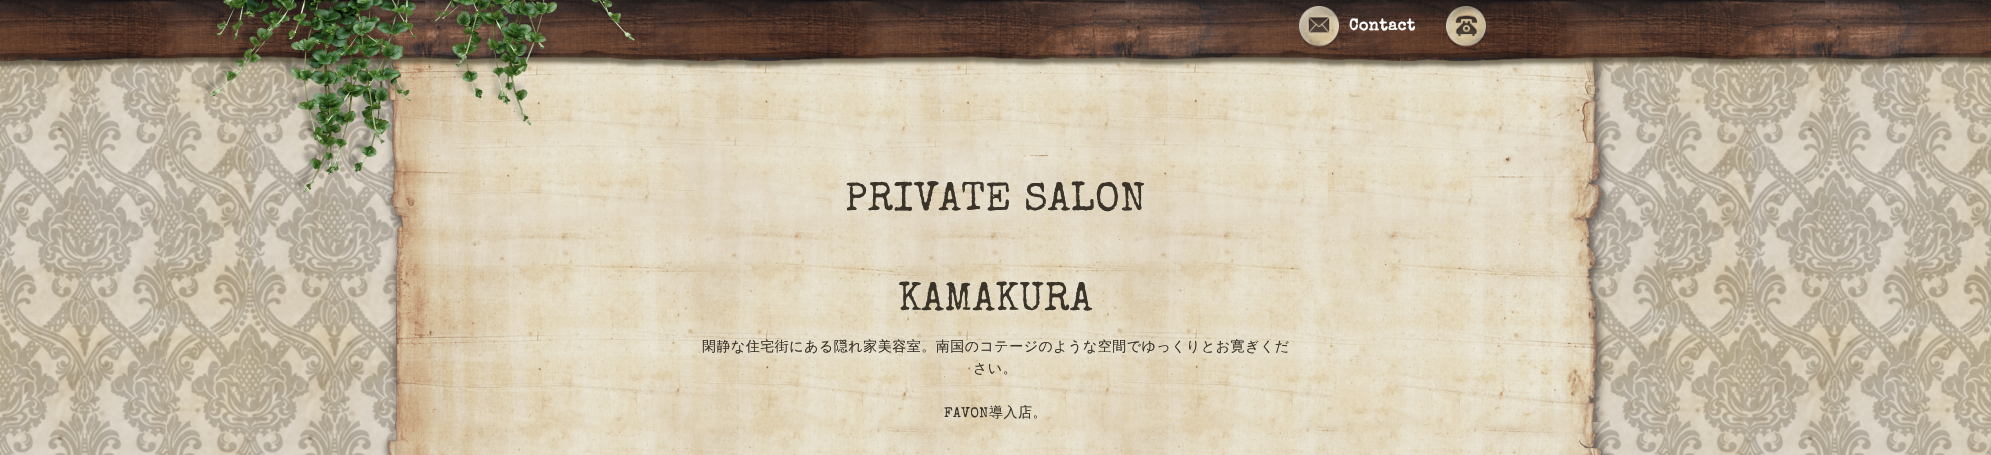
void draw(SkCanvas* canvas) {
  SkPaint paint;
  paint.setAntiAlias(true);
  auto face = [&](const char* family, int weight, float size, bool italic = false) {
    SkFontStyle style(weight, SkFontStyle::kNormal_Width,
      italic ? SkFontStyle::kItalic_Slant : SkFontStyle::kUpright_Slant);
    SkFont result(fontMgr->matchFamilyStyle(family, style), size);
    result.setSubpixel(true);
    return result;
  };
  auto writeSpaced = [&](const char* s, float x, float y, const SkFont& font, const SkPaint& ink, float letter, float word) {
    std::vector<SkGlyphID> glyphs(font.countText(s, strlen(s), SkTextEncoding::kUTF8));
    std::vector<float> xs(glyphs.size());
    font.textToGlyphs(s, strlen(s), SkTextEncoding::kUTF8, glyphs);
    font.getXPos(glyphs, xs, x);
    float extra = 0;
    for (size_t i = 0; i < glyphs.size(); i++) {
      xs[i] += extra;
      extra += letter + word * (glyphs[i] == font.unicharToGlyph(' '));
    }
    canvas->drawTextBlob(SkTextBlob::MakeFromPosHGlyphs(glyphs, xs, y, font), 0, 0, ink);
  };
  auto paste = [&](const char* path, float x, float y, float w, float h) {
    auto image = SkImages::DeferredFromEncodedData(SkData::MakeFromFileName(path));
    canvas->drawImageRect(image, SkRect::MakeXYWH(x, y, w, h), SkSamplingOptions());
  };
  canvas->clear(0xffffffff);
  paste("img/1.png", 0, 0, 1991, 455);
  paste("img/2.png", 381, 0, 1232, 455);
  paste("img/3.png", 0, 0, 1991, 69);
  paste("img/4.png", 200, 0, 435, 193);
  paste("img/5.png", 1299, 6, 40, 43);
  paste("img/6.png", 1446, 6, 40, 43);
  auto f0 = face("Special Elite", 700, 16);
  paint.setColor(0xffffffff);
  writeSpaced("Contact", 1349, 30, f0, paint, 0.5f, 0);
  auto f1 = face("Special Elite", 400, 40);
  paint.setColor(0xff3a3329);
  writeSpaced("PRIVATE SALON", 845, 210, f1, paint, 0.5f, 0);
  writeSpaced("KAMAKURA", 898, 310, f1, paint, 0.5f, 0);
  auto f2 = face("WenQuanYi Zen Hei", 500, 14);
  writeSpaced("閑静な住宅街にある隠れ家美容室。南国のコテージのような空間でゆっくりとお寛ぎくだ", 702, 351, f2, paint, 0.5f, 0);
  writeSpaced("さい。", 973, 373, f2, paint, 0.5f, 0);
  auto f3 = face("Special Elite", 400, 14);
  writeSpaced("FAVON", 944, 417, f3, paint, 0.5f, 0);
  writeSpaced("導入店。", 989, 417, f2, paint, 0.5f, 0);
}
